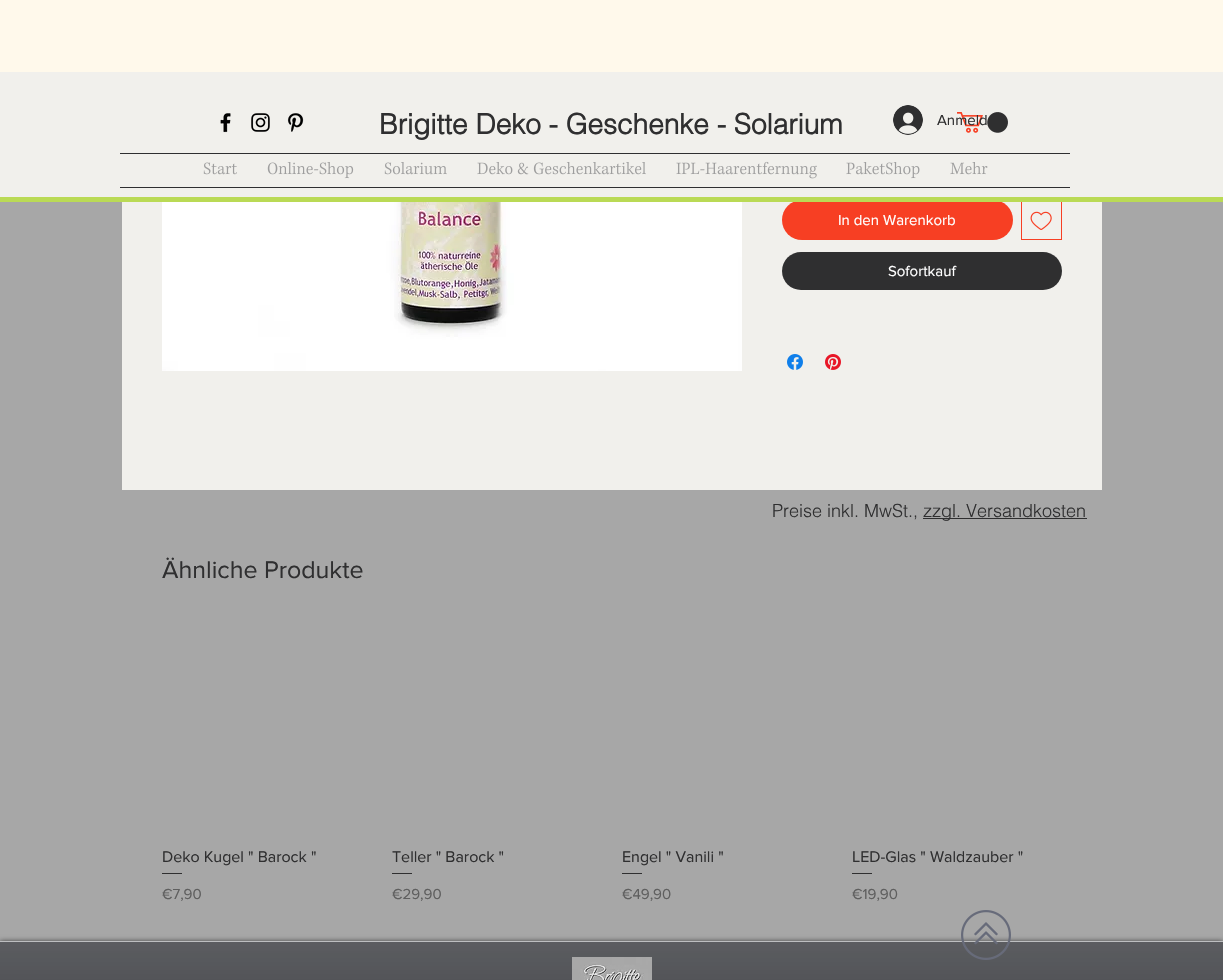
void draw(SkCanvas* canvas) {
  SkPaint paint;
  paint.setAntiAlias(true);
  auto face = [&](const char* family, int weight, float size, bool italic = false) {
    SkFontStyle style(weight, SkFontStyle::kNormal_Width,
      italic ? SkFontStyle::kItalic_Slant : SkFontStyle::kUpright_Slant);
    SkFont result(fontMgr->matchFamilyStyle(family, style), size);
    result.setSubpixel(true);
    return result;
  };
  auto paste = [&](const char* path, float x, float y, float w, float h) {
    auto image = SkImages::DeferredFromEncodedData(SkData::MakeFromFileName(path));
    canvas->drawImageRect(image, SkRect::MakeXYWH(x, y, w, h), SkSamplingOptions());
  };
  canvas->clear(0xffa7a7a7);
  paint.setColor(0xfff1f0ec);
  canvas->drawRect(SkRect::MakeXYWH(0, 72, 1223, 125), paint);
  paste("img/1.png", 220, 113, 11, 20);
  paste("img/2.png", 251, 113, 19, 19);
  paste("img/3.png", 287, 113, 17, 19);
  canvas->drawRect(SkRect::MakeXYWH(122, 202, 980, 288), paint);
  paint.setColor(0xfff73f23);
  canvas->drawRoundRect(SkRect::MakeXYWH(782, 200, 231, 40), 20, 20, paint);
  paint.setStroke(true);
  paint.setStrokeWidth(1);
  canvas->drawRect(SkRect::MakeXYWH(1021.5f, 200.5f, 40, 39), paint);
  paint.setStroke(false);
  {
    const struct { float x, y, w, h; SkColor color; } items[] = {
      {0, 197, 1223, 5, 0xffbada55},
      {0, 0, 1223, 72, 0xfffff9eb},
      {120, 153, 950, 1, 0xff2f2f30},
      {120, 187, 950, 1, 0xff2f2f30},
    };
    for (auto [x, y, w, h, color] : items) {
      paint.setColor(color);
      canvas->drawRect(SkRect::MakeXYWH(x, y, w, h), paint);
    }
  }
  paste("img/4.png", 203, 162, 34, 13);
  paste("img/5.png", 267, 162, 87, 17);
  paste("img/6.png", 384, 162, 63, 13);
  paste("img/7.png", 477, 162, 169, 13);
  paste("img/8.png", 676, 161, 141, 18);
  paste("img/9.png", 846, 162, 74, 17);
  paste("img/10.png", 950, 162, 38, 13);
  paste("img/11.png", 957, 112, 51, 21);
  paste("img/12.png", 893, 105, 30, 30);
  paste("img/13.png", 162, 202, 580, 169);
  paste("img/14.png", 1030, 211, 22, 19);
  canvas->drawRoundRect(SkRect::MakeXYWH(782, 252, 280, 38), 19, 19, paint);
  paste("img/15.png", 787, 354, 16, 16);
  paste("img/16.png", 825, 354, 16, 16);
  {
    const struct { float x, y, w, h; SkColor color; } items[] = {
      {923, 518, 164, 1, 0xff2f2f30},
      {162, 873, 20, 1, 0xff2f2f30},
      {392, 873, 20, 1, 0xff2f2f30},
      {622, 873, 20, 1, 0xff2f2f30},
      {852, 873, 20, 1, 0xff2f2f30},
    };
    for (auto [x, y, w, h, color] : items) {
      paint.setColor(color);
      canvas->drawRect(SkRect::MakeXYWH(x, y, w, h), paint);
    }
  }
  paint.setColor(0x99000000);
  paint.setMaskFilter(SkMaskFilter::MakeBlur(kNormal_SkBlurStyle, 2.5f));
  canvas->drawRect(SkRect::MakeXYWH(0, 941, 1223, 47), paint);
  paint.setMaskFilter(nullptr);
  paint.setColor(0xff222429);
  canvas->drawRect(SkRect::MakeXYWH(0, 942, 1223, 38), paint);
  paste("img/18.png", 0, 942, 1223, 38);
  paint.setColor(0xffbdbec0);
  canvas->drawRect(SkRect::MakeXYWH(0, 941, 1223, 1), paint);
  paste("img/17.png", 961, 910, 50, 50);
  paste("img/19.png", 572, 957, 80, 23);
  auto f0 = face("helvetica", 700, 28);
  paint.setColor(0xff2f2f30);
  canvas->drawString("Brigitte Deko - Geschenke - Solarium", 379, 134, f0, paint);
  auto f1 = face("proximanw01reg", 400, 15);
  canvas->drawString("Anmeld", 937, 125, f1, paint);
  paint.setColor(0xffffffff);
  canvas->drawString("In den Warenkorb", 838, 225, f1, paint);
  canvas->drawString("Sofortkauf", 888, 276, f1, paint);
  auto f2 = face("helvetica", 300, 18);
  paint.setColor(0xff2f2f30);
  canvas->drawString("Preise inkl. MwSt.,", 772, 517, f2, paint);
  canvas->drawString("zzgl. Versandkosten", 923, 517, f2, paint);
  auto f3 = face("proximanw01reg", 400, 25);
  canvas->drawString("Ähnliche Produkte", 162, 578, f3, paint);
  auto f4 = face("proximanw01reg", 400, 16);
  canvas->drawString("Deko Kugel \" Barock \"", 162, 862, f4, paint);
  paint.setColor(0xff5f5f5f);
  canvas->drawString("€7,90", 162, 899, f1, paint);
  paint.setColor(0xff2f2f30);
  canvas->drawString("Teller \" Barock \"", 392, 862, f4, paint);
  paint.setColor(0xff5f5f5f);
  canvas->drawString("€29,90", 392, 899, f1, paint);
  paint.setColor(0xff2f2f30);
  canvas->drawString("Engel \" Vanili \"", 622, 862, f4, paint);
  paint.setColor(0xff5f5f5f);
  canvas->drawString("€49,90", 622, 899, f1, paint);
  paint.setColor(0xff2f2f30);
  canvas->drawString("LED-Glas \" Waldzauber \"", 852, 862, f4, paint);
  paint.setColor(0xff5f5f5f);
  canvas->drawString("€19,90", 852, 899, f1, paint);
}
